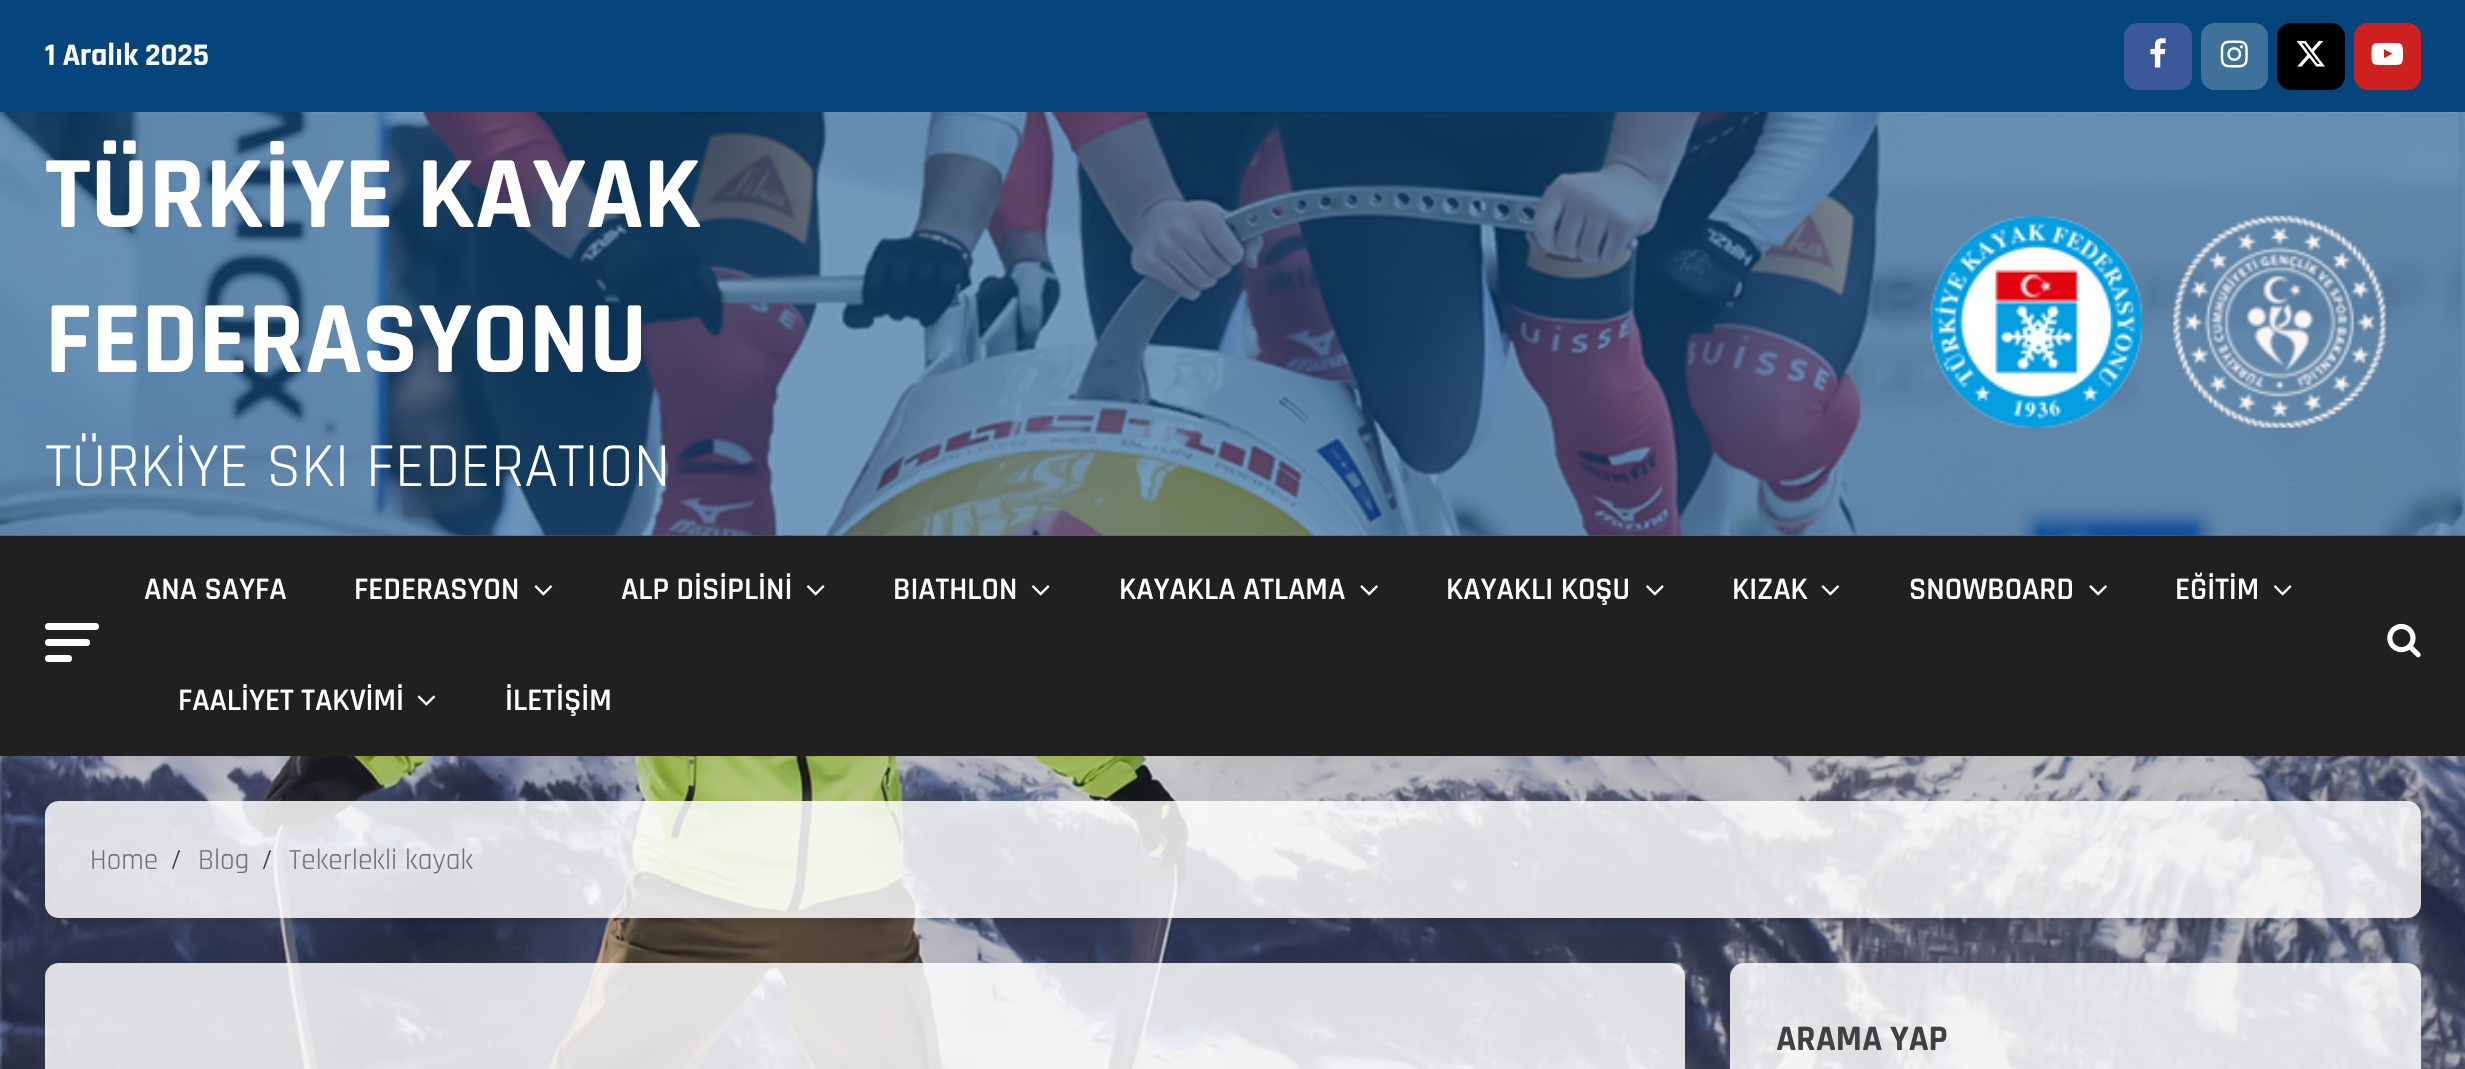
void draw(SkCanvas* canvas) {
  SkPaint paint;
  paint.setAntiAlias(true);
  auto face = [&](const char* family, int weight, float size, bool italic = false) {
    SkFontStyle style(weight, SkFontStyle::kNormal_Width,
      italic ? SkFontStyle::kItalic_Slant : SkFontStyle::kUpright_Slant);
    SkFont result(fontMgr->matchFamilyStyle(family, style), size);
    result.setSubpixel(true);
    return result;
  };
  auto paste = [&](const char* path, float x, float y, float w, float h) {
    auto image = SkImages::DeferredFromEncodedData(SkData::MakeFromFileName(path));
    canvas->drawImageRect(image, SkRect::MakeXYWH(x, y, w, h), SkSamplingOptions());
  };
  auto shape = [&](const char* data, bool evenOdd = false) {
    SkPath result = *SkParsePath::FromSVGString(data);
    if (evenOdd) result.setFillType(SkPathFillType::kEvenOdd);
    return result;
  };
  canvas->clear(0xffffffff);
  paste("img/1.png", 0, 535, 2465, 534);
  paint.setColor(0xff06457c);
  canvas->drawRect(SkRect::MakeXYWH(0, 0, 2465, 113), paint);
  paint.setColor(0xff3b5999);
  canvas->drawRoundRect(SkRect::MakeXYWH(2124, 23, 68, 67), 14, 14, paint);
  paste("img/2.png", 2150, 38, 16, 30);
  paint.setColor(0xff3f729b);
  canvas->drawRoundRect(SkRect::MakeXYWH(2201, 23, 67, 67), 14, 14, paint);
  paste("img/3.png", 2220, 40, 28, 28);
  paint.setColor(0xff000000);
  canvas->drawRoundRect(SkRect::MakeXYWH(2277, 23, 68, 67), 14, 14, paint);
  paste("img/4.png", 2296, 40, 29, 27);
  paint.setColor(0xffcd201f);
  canvas->drawRoundRect(SkRect::MakeXYWH(2354, 23, 67, 67), 14, 14, paint);
  paste("img/5.png", 2371, 42, 32, 24);
  paint.setColor(0x80007acc);
  canvas->drawRect(SkRect::MakeXYWH(0, 535, 2465, 1), paint);
  paste("img/6.png", 0, 112, 2465, 424);
  paint.setColor(0x8c044a87);
  canvas->drawRect(SkRect::MakeXYWH(0, 113, 2465, 423), paint);
  paste("img/7.png", 1930, 215, 456, 214);
  paint.setColor(0xff202020);
  canvas->drawRect(SkRect::MakeXYWH(0, 536, 2465, 220), paint);
  paint.setColor(0xffffffff);
  canvas->drawRoundRect(SkRect::MakeXYWH(45, 623, 54, 7), 3.5f, 3.5f, paint);
  canvas->drawRoundRect(SkRect::MakeXYWH(45, 639, 45, 7), 3.5f, 3.5f, paint);
  canvas->drawRoundRect(SkRect::MakeXYWH(45, 655, 27, 7), 3.5f, 3.5f, paint);
  paste("img/8.png", 534, 585, 19, 11);
  paste("img/9.png", 806, 585, 19, 11);
  paste("img/9.png", 1031, 585, 19, 11);
  paste("img/10.png", 1360, 585, 18, 11);
  paste("img/11.png", 1646, 585, 18, 11);
  paste("img/8.png", 1821, 585, 19, 11);
  paste("img/10.png", 2089, 585, 18, 11);
  paste("img/9.png", 2273, 585, 19, 11);
  paste("img/12.png", 417, 695, 19, 11);
  paste("img/13.png", 2387, 623, 34, 35);
  canvas->save();
  canvas->clipPath(shape("M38 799H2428V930H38ZM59 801H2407C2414.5 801 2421 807.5 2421 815V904C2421 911.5 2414.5 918 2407 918H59C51.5 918 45 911.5 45 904V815C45 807.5 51.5 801 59 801Z", true), true);
  paint.setColor(0x14000000);
  paint.setMaskFilter(SkMaskFilter::MakeBlur(kNormal_SkBlurStyle, 2));
  canvas->drawRoundRect(SkRect::MakeXYWH(45, 806, 2376, 117), 14, 14, paint);
  paint.setMaskFilter(nullptr);
  canvas->restore();
  paint.setColor(0xd6ffffff);
  canvas->drawRoundRect(SkRect::MakeXYWH(45, 801, 2376, 117), 14, 14, paint);
  canvas->drawRoundRect(SkRect::MakeXYWH(45, 963, 1640, 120), 14, 14, paint);
  canvas->drawRoundRect(SkRect::MakeXYWH(1730, 963, 691, 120), 14, 14, paint);
  auto f0 = face("Rajdhani", 700, 31.5f);
  paint.setColor(0xffffffff);
  canvas->drawString("1 Aralık 2025", 45, 65, f0, paint);
  auto f1 = face("Rajdhani", 700, 103.5f);
  canvas->drawString("TÜRKİYE KAYAK", 45, 227, f1, paint);
  canvas->drawString("FEDERASYONU", 45, 372, f1, paint);
  auto f2 = face("Rajdhani", 400, 63);
  canvas->drawString("TÜRKİYE SKI FEDERATION", 45, 486, f2, paint);
  auto f3 = face("Rajdhani", 600, 31.5f);
  {
    const struct { const char* s; float x, y; } items[] = {
      {"ANA SAYFA", 144, 599},
      {"FEDERASYON", 354, 599},
      {"ALP DİSİPLİNİ", 621, 599},
      {"BIATHLON", 893, 599},
      {"KAYAKLA ATLAMA", 1119, 599},
      {"KAYAKLI KOŞU", 1446, 599},
      {"KIZAK", 1732, 599},
      {"SNOWBOARD", 1909, 599},
      {"EĞİTİM", 2175, 599},
      {"FAALİYET TAKVİMİ", 178, 710},
      {"İLETİŞİM", 505, 710},
    };
    for (auto [s, x, y] : items) {
      canvas->drawString(s, x, y, f3, paint);
    }
  }
  auto f4 = face("Rajdhani", 400, 29.25f);
  paint.setColor(0xff707172);
  canvas->drawString("Home", 90, 869, f4, paint);
  paint.setColor(0xff404040);
  canvas->drawString("/", 170, 869, f4, paint);
  paint.setColor(0xff707172);
  canvas->drawString("Blog", 198, 869, f4, paint);
  paint.setColor(0xff404040);
  canvas->drawString("/", 261, 869, f4, paint);
  paint.setColor(0xff707172);
  canvas->drawString("Tekerlekli kayak", 289, 869, f4, paint);
  auto f5 = face("Rajdhani", 700, 36);
  paint.setColor(0xff404040);
  canvas->drawString("ARAMA YAP", 1776, 1050, f5, paint);
}
